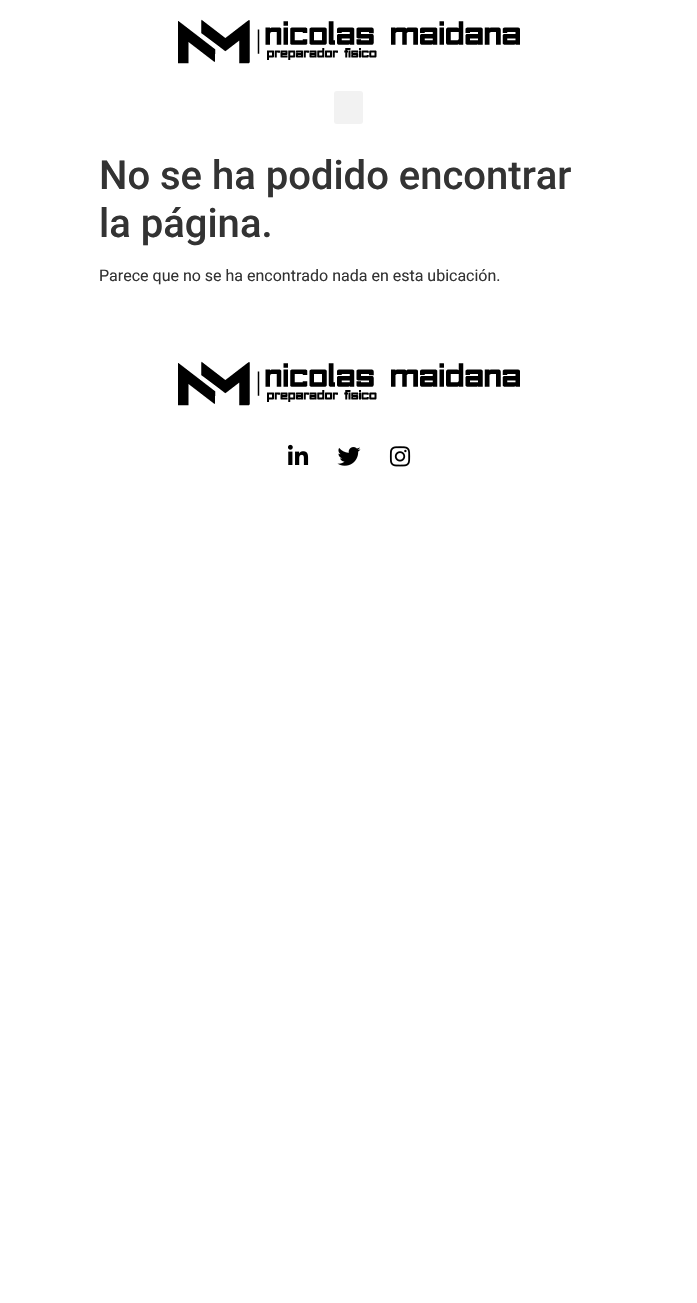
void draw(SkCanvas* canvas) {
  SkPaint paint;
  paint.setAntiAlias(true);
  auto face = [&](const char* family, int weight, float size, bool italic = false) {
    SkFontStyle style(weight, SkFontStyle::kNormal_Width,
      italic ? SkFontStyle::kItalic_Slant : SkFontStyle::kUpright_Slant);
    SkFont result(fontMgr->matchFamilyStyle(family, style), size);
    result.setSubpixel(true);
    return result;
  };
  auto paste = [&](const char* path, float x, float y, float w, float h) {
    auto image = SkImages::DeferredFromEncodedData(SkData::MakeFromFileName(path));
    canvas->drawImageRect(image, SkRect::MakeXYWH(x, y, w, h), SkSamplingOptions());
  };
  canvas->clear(0xffffffff);
  paste("img/1.png", 178, 19, 342, 45);
  paint.setColor(0xfff2f2f2);
  canvas->drawRoundRect(SkRect::MakeXYWH(334, 91, 29, 33), 3, 3, paint);
  paste("img/1.png", 178, 361, 342, 45);
  paste("img/2.png", 288, 444, 21, 21);
  paste("img/3.png", 337, 447, 24, 19);
  paste("img/4.png", 389, 446, 22, 21);
  auto f0 = face("Roboto", 500, 40);
  paint.setColor(0xff333333);
  canvas->drawString("No se ha podido encontrar", 99, 189, f0, paint);
  canvas->drawString("la página.", 99, 237, f0, paint);
  auto f1 = face("Roboto", 400, 16);
  canvas->drawString("Parece que no se ha encontrado nada en esta ubicación.", 99, 281, f1, paint);
}
